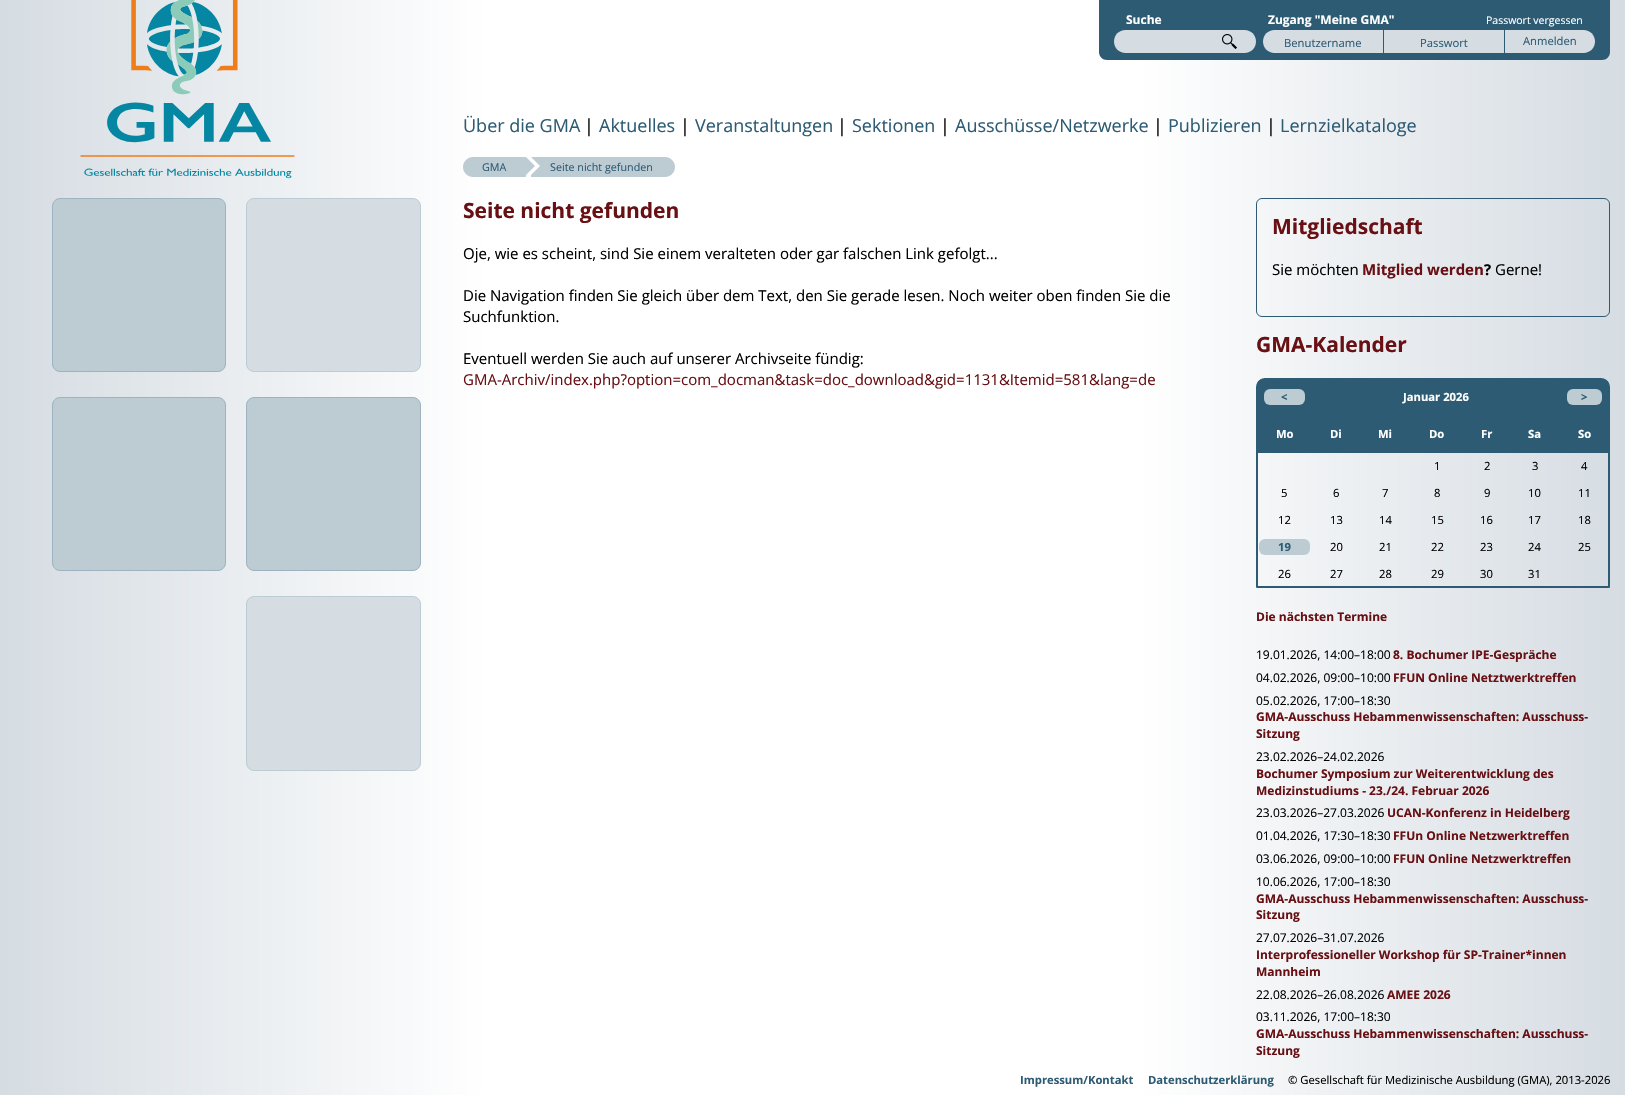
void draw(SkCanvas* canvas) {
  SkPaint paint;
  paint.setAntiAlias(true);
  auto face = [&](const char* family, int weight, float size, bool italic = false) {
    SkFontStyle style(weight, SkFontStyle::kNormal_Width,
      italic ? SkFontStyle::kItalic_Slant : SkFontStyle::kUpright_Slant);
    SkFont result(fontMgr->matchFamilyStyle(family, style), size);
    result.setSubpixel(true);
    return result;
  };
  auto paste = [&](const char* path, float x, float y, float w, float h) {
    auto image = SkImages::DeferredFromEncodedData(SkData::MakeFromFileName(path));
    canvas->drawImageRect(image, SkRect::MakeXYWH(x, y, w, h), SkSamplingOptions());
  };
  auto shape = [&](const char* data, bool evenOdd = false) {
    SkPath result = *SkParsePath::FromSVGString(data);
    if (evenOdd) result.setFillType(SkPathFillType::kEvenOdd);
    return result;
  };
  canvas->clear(0xffffffff);
  {
    const SkColor colors[] = {0xffd5dce2, 0xffffffff, 0xffffffff, 0xffd5dce2};
    const float stops[] = {0, 0.3f, 0.7f, 1};
    const SkPoint ends[] = {{0, 548}, {1625, 548}};
    paint.setShader(SkGradientShader::MakeLinear(ends, colors, stops, 4, SkTileMode::kClamp));
    paint.setAlpha(255);
  }
  canvas->drawRect(SkRect::MakeXYWH(0, 0, 1625, 1095), paint);
  paste("img/1.png", 80, 0, 215, 179);
  paint.setShader(nullptr);
  paint.setColor(0xff2d5b74);
  canvas->drawPath(shape("M1099 0H1610V52C1610 56.5 1606.5 60 1602 60H1107C1102.5 60 1099 56.5 1099 52Z"), paint);
  paint.setColor(0xffd5dce2);
  canvas->drawPath(shape("M1125.5 30H1204V53H1125.5C1119 53 1114 48 1114 41.5C1114 35 1119 30 1125.5 30Z"), paint);
  canvas->drawPath(shape("M1204 30H1244.5C1251 30 1256 35 1256 41.5C1256 48 1251 53 1244.5 53H1204Z"), paint);
  paste("img/2.png", 1222, 34, 15, 15);
  canvas->drawPath(shape("M1274.5 30H1383V53H1274.5C1268 53 1263 48 1263 41.5C1263 35 1268 30 1274.5 30Z"), paint);
  canvas->drawRect(SkRect::MakeXYWH(1384, 30, 120, 23), paint);
  canvas->drawPath(shape("M1505 30H1583.5C1590 30 1595 35 1595 41.5C1595 48 1590 53 1583.5 53H1505Z"), paint);
  paint.setColor(0xffbdcbd3);
  canvas->drawRoundRect(SkRect::MakeXYWH(52.5f, 198.5f, 173, 173), 7.5f, 7.5f, paint);
  paint.setStroke(true);
  paint.setStrokeWidth(1);
  paint.setColor(0xff9eb3bf);
  canvas->drawRoundRect(SkRect::MakeXYWH(52.5f, 198.5f, 173, 173), 7.5f, 7.5f, paint);
  paint.setStroke(false);
  paint.setColor(0xffd5dce2);
  canvas->drawRoundRect(SkRect::MakeXYWH(246.5f, 198.5f, 174, 173), 7.5f, 7.5f, paint);
  paint.setStroke(true);
  paint.setColor(0xffbdcbd3);
  canvas->drawRoundRect(SkRect::MakeXYWH(246.5f, 198.5f, 174, 173), 7.5f, 7.5f, paint);
  paint.setStroke(false);
  canvas->drawRoundRect(SkRect::MakeXYWH(52.5f, 397.5f, 173, 173), 7.5f, 7.5f, paint);
  paint.setStroke(true);
  paint.setColor(0xff9eb3bf);
  canvas->drawRoundRect(SkRect::MakeXYWH(52.5f, 397.5f, 173, 173), 7.5f, 7.5f, paint);
  paint.setStroke(false);
  paint.setColor(0xffbdcbd3);
  canvas->drawRoundRect(SkRect::MakeXYWH(246.5f, 397.5f, 174, 173), 7.5f, 7.5f, paint);
  paint.setStroke(true);
  paint.setColor(0xff9eb3bf);
  canvas->drawRoundRect(SkRect::MakeXYWH(246.5f, 397.5f, 174, 173), 7.5f, 7.5f, paint);
  paint.setStroke(false);
  paint.setColor(0xffd5dce2);
  canvas->drawRoundRect(SkRect::MakeXYWH(246.5f, 596.5f, 174, 174), 7.5f, 7.5f, paint);
  paint.setStroke(true);
  paint.setColor(0xffbdcbd3);
  canvas->drawRoundRect(SkRect::MakeXYWH(246.5f, 596.5f, 174, 174), 7.5f, 7.5f, paint);
  paint.setStroke(false);
  canvas->drawPath(shape("M473 157H526V177H473C467.5 177 463 172.5 463 167C463 161.5 467.5 157 473 157Z"), paint);
  canvas->drawPath(shape("M531 157H665C670.5 157 675 161.5 675 167C675 172.5 670.5 177 665 177H531Z"), paint);
  paint.setColor(0xffffffff);
  canvas->drawPath(shape("M531 175V157L540 166Z"), paint);
  paint.setColor(0xffbdcbd3);
  canvas->drawPath(shape("M526 175V157L535 166Z"), paint);
  paint.setStroke(true);
  paint.setColor(0xff2d5b74);
  canvas->drawRoundRect(SkRect::MakeXYWH(1256.5f, 198.5f, 353, 118), 5.5f, 5.5f, paint);
  canvas->drawPath(shape("M1265 378.5H1601C1605.5 378.5 1609.5 382.5 1609.5 387V587.5H1256.5V387C1256.5 382.5 1260.5 378.5 1265 378.5Z"), paint);
  paint.setStroke(false);
  canvas->drawPath(shape("M1263 379H1312V415H1257V385C1257 381.5 1259.5 379 1263 379Z"), paint);
  paint.setColor(0xffbdcbd3);
  canvas->drawRoundRect(SkRect::MakeXYWH(1264, 389, 41, 16), 6, 6, paint);
  paint.setColor(0xff2d5b74);
  canvas->drawRect(SkRect::MakeXYWH(1312, 379, 247, 36), paint);
  canvas->drawPath(shape("M1559 379H1603C1606.5 379 1609 381.5 1609 385V415H1559Z"), paint);
  paint.setColor(0xffbdcbd3);
  canvas->drawRoundRect(SkRect::MakeXYWH(1567, 389, 35, 16), 6, 6, paint);
  paint.setColor(0xff2d5b74);
  canvas->drawRect(SkRect::MakeXYWH(1257, 415, 352, 37), paint);
  paint.setStroke(true);
  canvas->drawRect(SkRect::MakeXYWH(1257.5f, 452.5f, 351, 134), paint);
  paint.setStroke(false);
  paint.setColor(0xffbdcbd3);
  canvas->drawRoundRect(SkRect::MakeXYWH(1259, 539, 51, 16), 6, 6, paint);
  auto f0 = face("Open Sans", 700, 12);
  paint.setColor(0xffffffff);
  canvas->drawString("Suche", 1126, 24, f0, paint);
  canvas->drawString("Zugang \"Meine GMA\"", 1268, 24, f0, paint);
  auto f1 = face("Open Sans", 400, 10.5f);
  canvas->drawString("Passwort vergessen", 1486, 24, f1, paint);
  auto f2 = face("Open Sans", 400, 11.25f);
  paint.setColor(0xff2d5b74);
  {
    const struct { const char* s; float x, y; } items[] = {
      {"Benutzername", 1284, 47},
      {"Passwort", 1420, 47},
      {"Anmelden", 1523, 45},
    };
    for (auto [s, x, y] : items) {
      canvas->drawString(s, x, y, f2, paint);
    }
  }
  auto f3 = face("Open Sans", 400, 18);
  canvas->drawString("Über die GMA", 463, 132, f3, paint);
  paint.setColor(0xff000000);
  canvas->drawString("|", 584, 132, f3, paint);
  paint.setColor(0xff2d5b74);
  canvas->drawString("Aktuelles", 599, 132, f3, paint);
  paint.setColor(0xff000000);
  canvas->drawString("|", 680, 132, f3, paint);
  paint.setColor(0xff2d5b74);
  canvas->drawString("Veranstaltungen", 695, 132, f3, paint);
  paint.setColor(0xff000000);
  canvas->drawString("|", 837, 132, f3, paint);
  paint.setColor(0xff2d5b74);
  canvas->drawString("Sektionen", 852, 132, f3, paint);
  paint.setColor(0xff000000);
  canvas->drawString("|", 940, 132, f3, paint);
  paint.setColor(0xff2d5b74);
  canvas->drawString("Ausschüsse/Netzwerke", 955, 132, f3, paint);
  paint.setColor(0xff000000);
  canvas->drawString("|", 1153, 132, f3, paint);
  paint.setColor(0xff2d5b74);
  canvas->drawString("Publizieren", 1168, 132, f3, paint);
  paint.setColor(0xff000000);
  canvas->drawString("|", 1266, 132, f3, paint);
  paint.setColor(0xff2d5b74);
  canvas->drawString("Lernzielkataloge", 1280, 132, f3, paint);
  auto f4 = face("Open Sans", 400, 10.75f);
  canvas->drawString("GMA", 482, 171, f4, paint);
  canvas->drawString("Seite nicht gefunden", 550, 171, f4, paint);
  auto f5 = face("Open Sans", 700, 21);
  paint.setColor(0xff681013);
  canvas->drawString("Seite nicht gefunden", 463, 218, f5, paint);
  auto f6 = face("Open Sans", 400, 15);
  paint.setColor(0xff000000);
  {
    const struct { const char* s; float x, y; } items[] = {
      {"Oje, wie es scheint, sind Sie einem veralteten oder gar falschen Link gefolgt...", 463, 259},
      {"Die Navigation finden Sie gleich über dem Text, den Sie gerade lesen. Noch weiter oben finden Sie die", 463, 301},
      {"Suchfunktion.", 463, 322},
      {"Eventuell werden Sie auch auf unserer Archivseite fündig:", 463, 364},
    };
    for (auto [s, x, y] : items) {
      canvas->drawString(s, x, y, f6, paint);
    }
  }
  paint.setColor(0xff681013);
  canvas->drawString("GMA-Archiv/index.php?option=com_docman&task=doc_download&gid=1131&Itemid=581&lang=de", 463, 385, f6, paint);
  canvas->drawString("Mitgliedschaft", 1272, 234, f5, paint);
  paint.setColor(0xff000000);
  canvas->drawString("Sie möchten", 1272, 275, f6, paint);
  auto f7 = face("Open Sans", 700, 15);
  paint.setColor(0xff681013);
  canvas->drawString("Mitglied werden", 1362, 275, f7, paint);
  paint.setColor(0xff000000);
  canvas->drawString("?", 1484, 275, f7, paint);
  canvas->drawString("Gerne!", 1495, 275, f6, paint);
  paint.setColor(0xff681013);
  canvas->drawString("GMA-Kalender", 1256, 352, f5, paint);
  auto f8 = face("Open Sans", 700, 11.25f);
  paint.setColor(0xff2d5b74);
  canvas->drawString("<", 1281, 401, f8, paint);
  paint.setColor(0xffffffff);
  canvas->drawString("Januar 2026", 1403, 401, f8, paint);
  paint.setColor(0xff2d5b74);
  canvas->drawString(">", 1581, 401, f8, paint);
  paint.setColor(0xffffffff);
  {
    const struct { const char* s; float x, y; } items[] = {
      {"Mo", 1276, 438},
      {"Di", 1330, 438},
      {"Mi", 1378, 438},
      {"Do", 1429, 438},
      {"Fr", 1481, 438},
      {"Sa", 1528, 438},
      {"So", 1578, 438},
    };
    for (auto [s, x, y] : items) {
      canvas->drawString(s, x, y, f8, paint);
    }
  }
  paint.setColor(0xff000000);
  {
    const struct { const char* s; float x, y; } items[] = {
      {"1", 1434, 470},
      {"2", 1484, 470},
      {"3", 1532, 470},
      {"4", 1581, 470},
      {"5", 1281, 497},
      {"6", 1333, 497},
      {"7", 1382, 497},
      {"8", 1434, 497},
      {"9", 1484, 497},
      {"10", 1528, 497},
      {"11", 1578, 497},
      {"12", 1278, 524},
      {"13", 1330, 524},
      {"14", 1379, 524},
      {"15", 1431, 524},
      {"16", 1480, 524},
      {"17", 1528, 524},
      {"18", 1578, 524},
    };
    for (auto [s, x, y] : items) {
      canvas->drawString(s, x, y, f2, paint);
    }
  }
  paint.setColor(0xff2d5b74);
  canvas->drawString("19", 1278, 551, f8, paint);
  paint.setColor(0xff000000);
  {
    const struct { const char* s; float x, y; } items[] = {
      {"20", 1330, 551},
      {"21", 1379, 551},
      {"22", 1431, 551},
      {"23", 1480, 551},
      {"24", 1528, 551},
      {"25", 1578, 551},
      {"26", 1278, 578},
      {"27", 1330, 578},
      {"28", 1379, 578},
      {"29", 1431, 578},
      {"30", 1480, 578},
      {"31", 1528, 578},
    };
    for (auto [s, x, y] : items) {
      canvas->drawString(s, x, y, f2, paint);
    }
  }
  paint.setColor(0xff681013);
  canvas->drawString("Die nächsten Termine", 1256, 621, f0, paint);
  auto f9 = face("Open Sans", 400, 12);
  paint.setColor(0xff000000);
  canvas->drawString("19.01.2026, 14:00–18:00", 1256, 659, f9, paint);
  paint.setColor(0xff681013);
  canvas->drawString("8. Bochumer IPE-Gespräche", 1393, 659, f0, paint);
  paint.setColor(0xff000000);
  canvas->drawString("04.02.2026, 09:00–10:00", 1256, 682, f9, paint);
  paint.setColor(0xff681013);
  canvas->drawString("FFUN Online Netztwerktreffen", 1393, 682, f0, paint);
  paint.setColor(0xff000000);
  canvas->drawString("05.02.2026, 17:00–18:30", 1256, 705, f9, paint);
  paint.setColor(0xff681013);
  canvas->drawString("GMA-Ausschuss Hebammenwissenschaften: Ausschuss-", 1256, 721, f0, paint);
  canvas->drawString("Sitzung", 1256, 738, f0, paint);
  paint.setColor(0xff000000);
  canvas->drawString("23.02.2026–24.02.2026", 1256, 761, f9, paint);
  paint.setColor(0xff681013);
  canvas->drawString("Bochumer Symposium zur Weiterentwicklung des", 1256, 778, f0, paint);
  canvas->drawString("Medizinstudiums - 23./24. Februar 2026", 1256, 795, f0, paint);
  paint.setColor(0xff000000);
  canvas->drawString("23.03.2026–27.03.2026", 1256, 817, f9, paint);
  paint.setColor(0xff681013);
  canvas->drawString("UCAN-Konferenz in Heidelberg", 1387, 817, f0, paint);
  paint.setColor(0xff000000);
  canvas->drawString("01.04.2026, 17:30–18:30", 1256, 840, f9, paint);
  paint.setColor(0xff681013);
  canvas->drawString("FFUn Online Netzwerktreffen", 1393, 840, f0, paint);
  paint.setColor(0xff000000);
  canvas->drawString("03.06.2026, 09:00–10:00", 1256, 863, f9, paint);
  paint.setColor(0xff681013);
  canvas->drawString("FFUN Online Netzwerktreffen", 1393, 863, f0, paint);
  paint.setColor(0xff000000);
  canvas->drawString("10.06.2026, 17:00–18:30", 1256, 886, f9, paint);
  paint.setColor(0xff681013);
  canvas->drawString("GMA-Ausschuss Hebammenwissenschaften: Ausschuss-", 1256, 903, f0, paint);
  canvas->drawString("Sitzung", 1256, 919, f0, paint);
  paint.setColor(0xff000000);
  canvas->drawString("27.07.2026–31.07.2026", 1256, 942, f9, paint);
  paint.setColor(0xff681013);
  canvas->drawString("Interprofessioneller Workshop für SP-Trainer*innen", 1256, 959, f0, paint);
  canvas->drawString("Mannheim", 1256, 976, f0, paint);
  paint.setColor(0xff000000);
  canvas->drawString("22.08.2026–26.08.2026", 1256, 999, f9, paint);
  paint.setColor(0xff681013);
  canvas->drawString("AMEE 2026", 1387, 999, f0, paint);
  paint.setColor(0xff000000);
  canvas->drawString("03.11.2026, 17:00–18:30", 1256, 1021, f9, paint);
  paint.setColor(0xff681013);
  canvas->drawString("GMA-Ausschuss Hebammenwissenschaften: Ausschuss-", 1256, 1038, f0, paint);
  canvas->drawString("Sitzung", 1256, 1055, f0, paint);
  paint.setColor(0xff2d5b74);
  canvas->drawString("Impressum/Kontakt", 1020, 1084, f8, paint);
  canvas->drawString("Datenschutzerklärung", 1148, 1084, f8, paint);
  paint.setColor(0xff000000);
  canvas->drawString("© Gesellschaft für Medizinische Ausbildung (GMA), 2013-2026", 1288, 1084, f2, paint);
}
